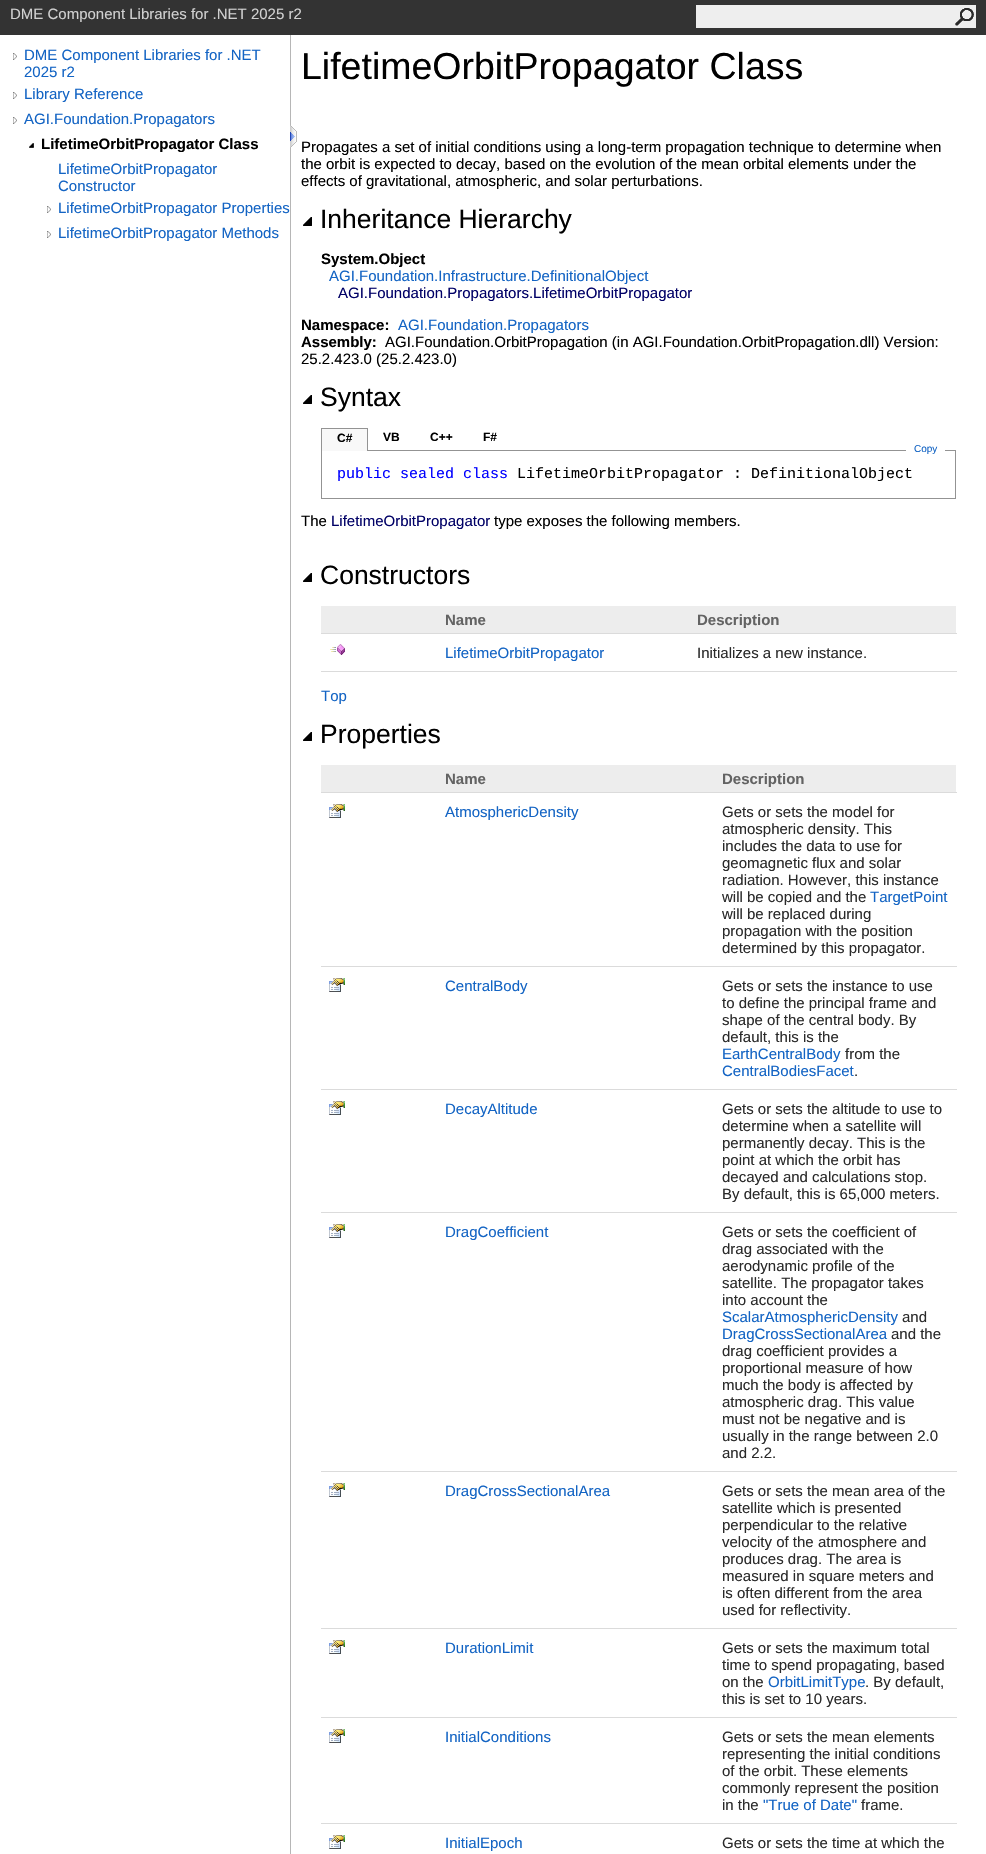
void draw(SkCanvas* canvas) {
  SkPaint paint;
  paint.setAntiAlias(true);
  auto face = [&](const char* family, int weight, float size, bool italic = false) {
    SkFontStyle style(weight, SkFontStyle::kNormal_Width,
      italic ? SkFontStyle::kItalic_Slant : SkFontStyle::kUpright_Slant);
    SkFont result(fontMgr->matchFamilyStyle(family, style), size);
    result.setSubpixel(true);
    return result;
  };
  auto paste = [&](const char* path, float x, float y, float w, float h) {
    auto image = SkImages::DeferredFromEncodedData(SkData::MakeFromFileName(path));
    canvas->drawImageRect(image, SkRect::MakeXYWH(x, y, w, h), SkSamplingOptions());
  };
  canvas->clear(0xffffffff);
  paint.setColor(0xff333333);
  canvas->drawRect(SkRect::MakeXYWH(0, 0, 986, 35), paint);
  paint.setColor(0xffeeeeee);
  canvas->drawRect(SkRect::MakeXYWH(696, 5, 280, 23), paint);
  paste("img/1.png", 955, 8, 19, 18);
  paint.setColor(0xffb6b6b6);
  canvas->drawRect(SkRect::MakeXYWH(290, 35, 1, 1819), paint);
  paste("img/2.png", 13, 53, 4, 7);
  paste("img/2.png", 13, 92, 4, 7);
  paste("img/2.png", 13, 117, 4, 7);
  paste("img/3.png", 29, 143, 5, 5);
  paste("img/2.png", 47, 206, 4, 7);
  paste("img/2.png", 47, 231, 4, 7);
  paste("img/4.png", 290, 125, 7, 23);
  paste("img/5.png", 303, 217, 9, 9);
  paste("img/5.png", 303, 395, 9, 9);
  paint.setStroke(true);
  paint.setStrokeWidth(1);
  paint.setColor(0xff939393);
  canvas->drawRect(SkRect::MakeXYWH(321.5f, 450.5f, 634, 48), paint);
  paint.setStroke(false);
  {
    const struct { float x, y, w, h; SkColor color; } items[] = {
      {322, 429, 45, 22, 0xfff8f8f8},
      {321, 428, 47, 1, 0xff939393},
      {367, 428, 1, 23, 0xff939393},
      {321, 428, 1, 23, 0xff939393},
      {906, 450, 39, 1, 0xffffffff},
    };
    for (auto [x, y, w, h, color] : items) {
      paint.setColor(color);
      canvas->drawRect(SkRect::MakeXYWH(x, y, w, h), paint);
    }
  }
  paste("img/5.png", 303, 573, 9, 9);
  paint.setColor(0xffededed);
  canvas->drawRect(SkRect::MakeXYWH(321, 606, 635, 27), paint);
  paint.setColor(0xffdbdbdb);
  canvas->drawRect(SkRect::MakeXYWH(321, 633, 636, 1), paint);
  paste("img/6.png", 330, 644, 15, 11);
  canvas->drawRect(SkRect::MakeXYWH(321, 671, 636, 1), paint);
  paste("img/5.png", 303, 732, 9, 9);
  paint.setColor(0xffededed);
  canvas->drawRect(SkRect::MakeXYWH(321, 765, 635, 27), paint);
  paint.setColor(0xffdbdbdb);
  canvas->drawRect(SkRect::MakeXYWH(321, 792, 636, 1), paint);
  paste("img/7.png", 329, 804, 16, 14);
  canvas->drawRect(SkRect::MakeXYWH(321, 966, 636, 1), paint);
  paste("img/7.png", 329, 978, 16, 14);
  canvas->drawRect(SkRect::MakeXYWH(321, 1089, 636, 1), paint);
  paste("img/7.png", 329, 1101, 16, 14);
  canvas->drawRect(SkRect::MakeXYWH(321, 1212, 636, 1), paint);
  paste("img/7.png", 329, 1224, 16, 14);
  canvas->drawRect(SkRect::MakeXYWH(321, 1471, 636, 1), paint);
  paste("img/7.png", 329, 1483, 16, 14);
  canvas->drawRect(SkRect::MakeXYWH(321, 1628, 636, 1), paint);
  paste("img/7.png", 329, 1640, 16, 14);
  canvas->drawRect(SkRect::MakeXYWH(321, 1717, 636, 1), paint);
  paste("img/7.png", 329, 1729, 16, 14);
  canvas->drawRect(SkRect::MakeXYWH(321, 1823, 636, 1), paint);
  paste("img/7.png", 329, 1835, 16, 14);
  auto f0 = face("Liberation Sans", 400, 15);
  paint.setColor(0xffd0d0d0);
  canvas->drawString("DME Component Libraries for .NET 2025 r2", 10, 19, f0, paint);
  paint.setColor(0xff1364c4);
  {
    const struct { const char* s; float x, y; } items[] = {
      {"DME Component Libraries for .NET", 24, 60},
      {"2025 r2", 24, 77},
      {"Library Reference", 24, 99},
      {"AGI.Foundation.Propagators", 24, 124},
    };
    for (auto [s, x, y] : items) {
      canvas->drawString(s, x, y, f0, paint);
    }
  }
  canvas->save();
  canvas->clipRect(SkRect::MakeXYWH(41, 135, 249, 17));
  auto f1 = face("Liberation Sans", 700, 15);
  paint.setColor(0xff000000);
  canvas->drawString("LifetimeOrbitPropagator Class", 41, 149, f1, paint);
  canvas->restore();
  paint.setColor(0xff1364c4);
  canvas->drawString("LifetimeOrbitPropagator", 58, 174, f0, paint);
  canvas->drawString("Constructor", 58, 191, f0, paint);
  canvas->save();
  canvas->clipRect(SkRect::MakeXYWH(58, 199, 232, 17));
  canvas->drawString("LifetimeOrbitPropagator Properties", 58, 213, f0, paint);
  canvas->restore();
  canvas->drawString("LifetimeOrbitPropagator Methods", 58, 238, f0, paint);
  auto f2 = face("Liberation Sans", 400, 37.5f);
  paint.setColor(0xff000000);
  canvas->drawString("LifetimeOrbitPropagator Class", 301, 79, f2, paint);
  {
    const struct { const char* s; float x, y; } items[] = {
      {"Propagates a set of initial conditions using a long-term propagation technique to determine when", 301, 152},
      {"the orbit is expected to decay, based on the evolution of the mean orbital elements under the", 301, 169},
      {"effects of gravitational, atmospheric, and solar perturbations.", 301, 186},
    };
    for (auto [s, x, y] : items) {
      canvas->drawString(s, x, y, f0, paint);
    }
  }
  auto f3 = face("Liberation Sans", 400, 26.5f);
  canvas->drawString("Inheritance Hierarchy", 320, 228, f3, paint);
  canvas->drawString("System.Object", 321, 264, f1, paint);
  paint.setColor(0xff1364c4);
  canvas->drawString("AGI.Foundation.Infrastructure.DefinitionalObject", 329, 281, f0, paint);
  paint.setColor(0xff000066);
  canvas->drawString("AGI.Foundation.Propagators.LifetimeOrbitPropagator", 338, 298, f0, paint);
  paint.setColor(0xff000000);
  canvas->drawString("Namespace:", 301, 330, f1, paint);
  paint.setColor(0xff1364c4);
  canvas->drawString("AGI.Foundation.Propagators", 398, 330, f0, paint);
  paint.setColor(0xff000000);
  canvas->drawString("Assembly:", 301, 347, f1, paint);
  canvas->drawString("AGI.Foundation.OrbitPropagation (in AGI.Foundation.OrbitPropagation.dll) Version:", 385, 347, f0, paint);
  canvas->drawString("25.2.423.0 (25.2.423.0)", 301, 364, f0, paint);
  canvas->drawString("Syntax", 320, 406, f3, paint);
  auto f4 = face("Liberation Sans", 700, 12);
  {
    const struct { const char* s; float x, y; } items[] = {
      {"C#", 337, 442},
      {"VB", 383, 441},
      {"C++", 430, 441},
      {"F#", 483, 441},
    };
    for (auto [s, x, y] : items) {
      canvas->drawString(s, x, y, f4, paint);
    }
  }
  auto f5 = face("Liberation Sans", 400, 10);
  paint.setColor(0xff1364c4);
  canvas->drawString("Copy", 914, 452, f5, paint);
  auto f6 = face("Liberation Mono", 400, 15);
  paint.setColor(0xff0000ff);
  canvas->drawString("public sealed class", 337, 478, f6, paint);
  paint.setColor(0xff000000);
  canvas->drawString("LifetimeOrbitPropagator : DefinitionalObject", 517, 478, f6, paint);
  canvas->drawString("The", 301, 526, f0, paint);
  paint.setColor(0xff000066);
  canvas->drawString("LifetimeOrbitPropagator", 331, 526, f0, paint);
  paint.setColor(0xff000000);
  canvas->drawString("type exposes the following members.", 494, 526, f0, paint);
  canvas->drawString("Constructors", 320, 584, f3, paint);
  paint.setColor(0xff636363);
  canvas->drawString("Name", 445, 625, f1, paint);
  canvas->drawString("Description", 697, 625, f1, paint);
  paint.setColor(0xff1364c4);
  canvas->drawString("LifetimeOrbitPropagator", 445, 658, f0, paint);
  paint.setColor(0xff2a2a2a);
  canvas->drawString("Initializes a new instance.", 697, 658, f0, paint);
  paint.setColor(0xff1364c4);
  canvas->drawString("Top", 321, 701, f0, paint);
  paint.setColor(0xff000000);
  canvas->drawString("Properties", 320, 743, f3, paint);
  paint.setColor(0xff636363);
  canvas->drawString("Name", 445, 784, f1, paint);
  canvas->drawString("Description", 722, 784, f1, paint);
  paint.setColor(0xff1364c4);
  canvas->drawString("AtmosphericDensity", 445, 817, f0, paint);
  paint.setColor(0xff2a2a2a);
  {
    const struct { const char* s; float x, y; } items[] = {
      {"Gets or sets the model for", 722, 817},
      {"atmospheric density. This", 722, 834},
      {"includes the data to use for", 722, 851},
      {"geomagnetic flux and solar", 722, 868},
      {"radiation. However, this instance", 722, 885},
      {"will be copied and the", 722, 902},
    };
    for (auto [s, x, y] : items) {
      canvas->drawString(s, x, y, f0, paint);
    }
  }
  paint.setColor(0xff1364c4);
  canvas->drawString("TargetPoint", 870, 902, f0, paint);
  paint.setColor(0xff2a2a2a);
  {
    const struct { const char* s; float x, y; } items[] = {
      {"will be replaced during", 722, 919},
      {"propagation with the position", 722, 936},
      {"determined by this propagator.", 722, 953},
    };
    for (auto [s, x, y] : items) {
      canvas->drawString(s, x, y, f0, paint);
    }
  }
  paint.setColor(0xff1364c4);
  canvas->drawString("CentralBody", 445, 991, f0, paint);
  paint.setColor(0xff2a2a2a);
  {
    const struct { const char* s; float x, y; } items[] = {
      {"Gets or sets the instance to use", 722, 991},
      {"to define the principal frame and", 722, 1008},
      {"shape of the central body. By", 722, 1025},
      {"default, this is the", 722, 1042},
    };
    for (auto [s, x, y] : items) {
      canvas->drawString(s, x, y, f0, paint);
    }
  }
  paint.setColor(0xff1364c4);
  canvas->drawString("EarthCentralBody", 722, 1059, f0, paint);
  paint.setColor(0xff2a2a2a);
  canvas->drawString("from the", 845, 1059, f0, paint);
  paint.setColor(0xff1364c4);
  canvas->drawString("CentralBodiesFacet", 722, 1076, f0, paint);
  paint.setColor(0xff2a2a2a);
  canvas->drawString(".", 854, 1076, f0, paint);
  paint.setColor(0xff1364c4);
  canvas->drawString("DecayAltitude", 445, 1114, f0, paint);
  paint.setColor(0xff2a2a2a);
  {
    const struct { const char* s; float x, y; } items[] = {
      {"Gets or sets the altitude to use to", 722, 1114},
      {"determine when a satellite will", 722, 1131},
      {"permanently decay. This is the", 722, 1148},
      {"point at which the orbit has", 722, 1165},
      {"decayed and calculations stop.", 722, 1182},
      {"By default, this is 65,000 meters.", 722, 1199},
    };
    for (auto [s, x, y] : items) {
      canvas->drawString(s, x, y, f0, paint);
    }
  }
  paint.setColor(0xff1364c4);
  canvas->drawString("DragCoefficient", 445, 1237, f0, paint);
  paint.setColor(0xff2a2a2a);
  {
    const struct { const char* s; float x, y; } items[] = {
      {"Gets or sets the coefficient of", 722, 1237},
      {"drag associated with the", 722, 1254},
      {"aerodynamic profile of the", 722, 1271},
      {"satellite. The propagator takes", 722, 1288},
      {"into account the", 722, 1305},
    };
    for (auto [s, x, y] : items) {
      canvas->drawString(s, x, y, f0, paint);
    }
  }
  paint.setColor(0xff1364c4);
  canvas->drawString("ScalarAtmosphericDensity", 722, 1322, f0, paint);
  paint.setColor(0xff2a2a2a);
  canvas->drawString("and", 902, 1322, f0, paint);
  paint.setColor(0xff1364c4);
  canvas->drawString("DragCrossSectionalArea", 722, 1339, f0, paint);
  paint.setColor(0xff2a2a2a);
  {
    const struct { const char* s; float x, y; } items[] = {
      {"and the", 891, 1339},
      {"drag coefficient provides a", 722, 1356},
      {"proportional measure of how", 722, 1373},
      {"much the body is affected by", 722, 1390},
      {"atmospheric drag. This value", 722, 1407},
      {"must not be negative and is", 722, 1424},
      {"usually in the range between 2.0", 722, 1441},
      {"and 2.2.", 722, 1458},
    };
    for (auto [s, x, y] : items) {
      canvas->drawString(s, x, y, f0, paint);
    }
  }
  paint.setColor(0xff1364c4);
  canvas->drawString("DragCrossSectionalArea", 445, 1496, f0, paint);
  paint.setColor(0xff2a2a2a);
  {
    const struct { const char* s; float x, y; } items[] = {
      {"Gets or sets the mean area of the", 722, 1496},
      {"satellite which is presented", 722, 1513},
      {"perpendicular to the relative", 722, 1530},
      {"velocity of the atmosphere and", 722, 1547},
      {"produces drag. The area is", 722, 1564},
      {"measured in square meters and", 722, 1581},
      {"is often different from the area", 722, 1598},
      {"used for reflectivity.", 722, 1615},
    };
    for (auto [s, x, y] : items) {
      canvas->drawString(s, x, y, f0, paint);
    }
  }
  paint.setColor(0xff1364c4);
  canvas->drawString("DurationLimit", 445, 1653, f0, paint);
  paint.setColor(0xff2a2a2a);
  {
    const struct { const char* s; float x, y; } items[] = {
      {"Gets or sets the maximum total", 722, 1653},
      {"time to spend propagating, based", 722, 1670},
      {"on the", 722, 1687},
    };
    for (auto [s, x, y] : items) {
      canvas->drawString(s, x, y, f0, paint);
    }
  }
  paint.setColor(0xff1364c4);
  canvas->drawString("OrbitLimitType", 768, 1687, f0, paint);
  paint.setColor(0xff2a2a2a);
  canvas->drawString(". By default,", 865, 1687, f0, paint);
  canvas->drawString("this is set to 10 years.", 722, 1704, f0, paint);
  paint.setColor(0xff1364c4);
  canvas->drawString("InitialConditions", 445, 1742, f0, paint);
  paint.setColor(0xff2a2a2a);
  {
    const struct { const char* s; float x, y; } items[] = {
      {"Gets or sets the mean elements", 722, 1742},
      {"representing the initial conditions", 722, 1759},
      {"of the orbit. These elements", 722, 1776},
      {"commonly represent the position", 722, 1793},
      {"in the", 722, 1810},
    };
    for (auto [s, x, y] : items) {
      canvas->drawString(s, x, y, f0, paint);
    }
  }
  paint.setColor(0xff1364c4);
  canvas->drawString("\"True of Date\"", 763, 1810, f0, paint);
  paint.setColor(0xff2a2a2a);
  canvas->drawString("frame.", 861, 1810, f0, paint);
  paint.setColor(0xff1364c4);
  canvas->drawString("InitialEpoch", 445, 1848, f0, paint);
  paint.setColor(0xff2a2a2a);
  canvas->drawString("Gets or sets the time at which the", 722, 1848, f0, paint);
}
